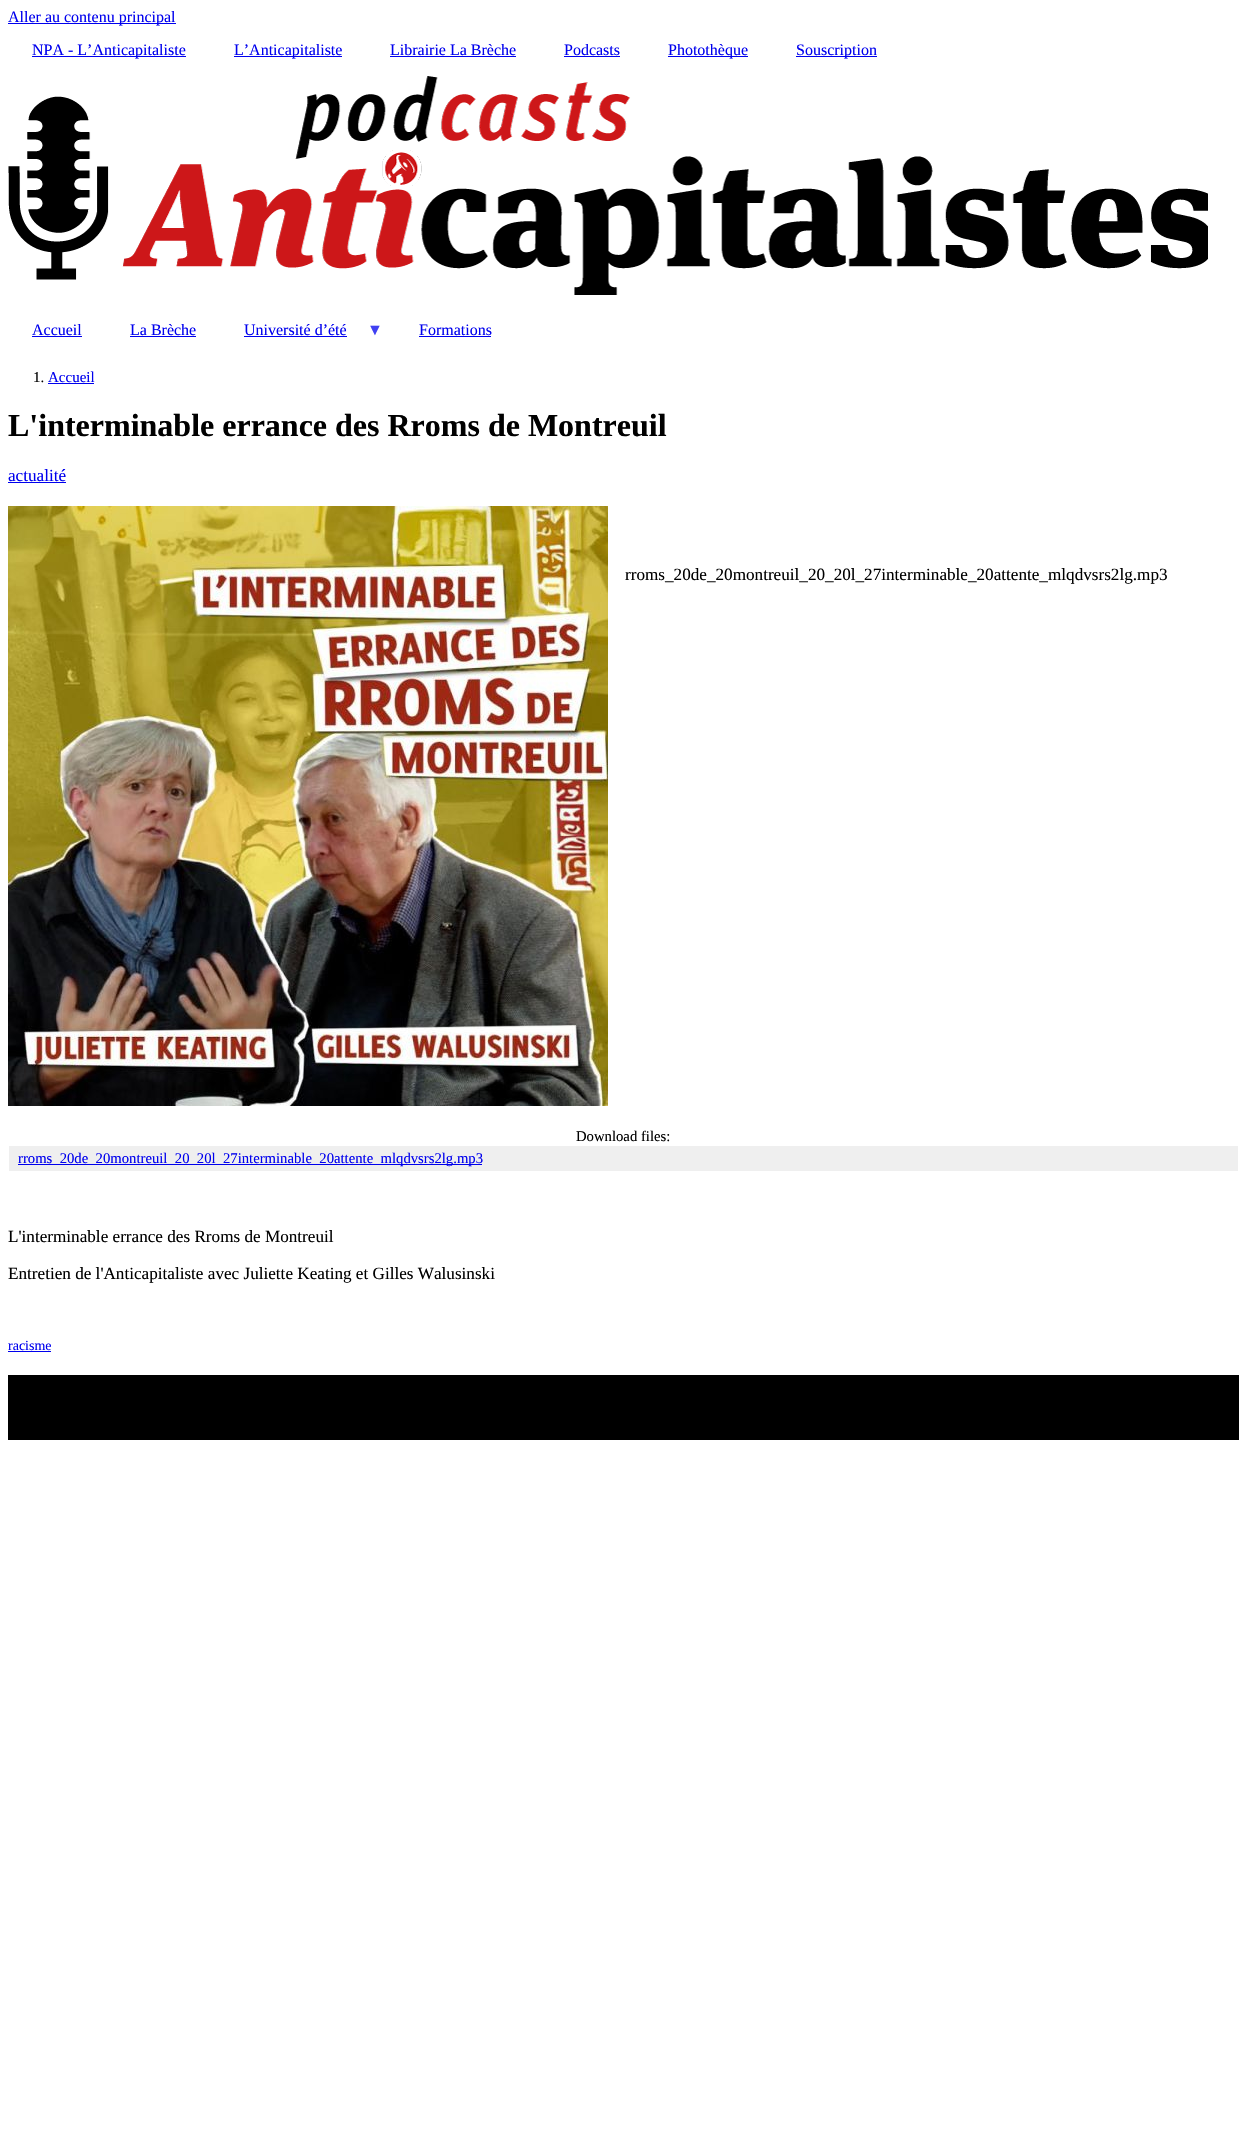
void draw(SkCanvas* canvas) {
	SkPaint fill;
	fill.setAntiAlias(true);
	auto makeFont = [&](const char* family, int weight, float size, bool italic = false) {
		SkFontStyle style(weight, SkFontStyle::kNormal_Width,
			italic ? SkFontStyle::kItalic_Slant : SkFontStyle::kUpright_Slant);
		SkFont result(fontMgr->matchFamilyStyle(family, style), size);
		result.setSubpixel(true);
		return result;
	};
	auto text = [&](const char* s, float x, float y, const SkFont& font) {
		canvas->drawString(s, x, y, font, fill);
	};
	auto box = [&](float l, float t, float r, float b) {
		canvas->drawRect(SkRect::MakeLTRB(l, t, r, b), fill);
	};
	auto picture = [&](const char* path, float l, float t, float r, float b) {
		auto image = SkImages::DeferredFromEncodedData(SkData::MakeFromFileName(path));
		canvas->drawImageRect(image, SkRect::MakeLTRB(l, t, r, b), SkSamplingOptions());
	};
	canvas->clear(0xFFFFFFFF);
	fill.setColor(0xFF0000EE);
	box(8, 23, 176, 24);
	box(32, 56, 186, 57);
	box(234, 56, 342, 57);
	box(390, 56, 516, 57);
	box(564, 56, 620, 57);
	box(668, 56, 748, 57);
	box(796, 56, 877, 57);
	picture("image0.png", 8, 76, 1208, 295);
	box(32, 336, 82, 337);
	box(130, 336, 196, 337);
	box(244, 336, 347, 337);
	box(419, 336, 491, 337);
	box(48, 383, 94, 384);
	box(8, 482, 66, 483);
	picture("image1.png", 8, 506, 608, 1106);
	fill.setColor(0xFFEFEFEF);
	box(9, 1146, 1238, 1171);
	fill.setColor(0xFF0000EE);
	box(18, 1164, 482, 1165);
	box(8, 1351, 51, 1352);
	fill.setColor(0xFF000000);
	box(8, 1375, 1239, 1440);
	auto font1 = makeFont("Liberation Serif", 400, 16);
	fill.setColor(0xFF0000EE);
	text("Aller au contenu principal", 8, 22, font1);
	text("NPA - L’Anticapitaliste", 32, 55, font1);
	text("L’Anticapitaliste", 234, 55, font1);
	text("Librairie La Brèche", 390, 55, font1);
	text("Podcasts", 564, 55, font1);
	text("Photothèque", 668, 55, font1);
	text("Souscription", 796, 55, font1);
	text("Accueil", 32, 335, font1);
	text("La Brèche", 130, 335, font1);
	text("Université d’été", 244, 335, font1);
	fill.setColor(0xFF4040F2);
	text("▼", 367, 335, font1);
	fill.setColor(0xFF0000EE);
	text("Formations", 419, 335, font1);
	auto font2 = makeFont("Liberation Serif", 400, 15);
	fill.setColor(0xFF000000);
	text("1.", 33, 382, font2);
	fill.setColor(0xFF0000EE);
	text("Accueil", 48, 382, font2);
	auto font3 = makeFont("Liberation Serif", 700, 32);
	fill.setColor(0xFF000000);
	text("L'interminable errance des Rroms de Montreuil", 8, 436, font3);
	auto font4 = makeFont("Liberation Serif", 400, 17.15f);
	fill.setColor(0xFF0000EE);
	text("actualité", 8, 481, font4);
	fill.setColor(0xFF000000);
	text("rroms_20de_20montreuil_20_20l_27interminable_20attente_mlqdvsrs2lg.mp3", 625, 580, font4);
	auto font5 = makeFont("Liberation Serif", 400, 14.7f);
	text("Download files:", 576, 1141, font5);
	fill.setColor(0xFF0000EE);
	text("rroms_20de_20montreuil_20_20l_27interminable_20attente_mlqdvsrs2lg.mp3", 18, 1163, font5);
	fill.setColor(0xFF000000);
	text("L'interminable errance des Rroms de Montreuil", 8, 1242, font4);
	text("Entretien de l'Anticapitaliste avec Juliette Keating et Gilles Walusinski", 8, 1279, font4);
	auto font6 = makeFont("Liberation Serif", 400, 14);
	fill.setColor(0xFF0000EE);
	text("racisme", 8, 1350, font6);
}
